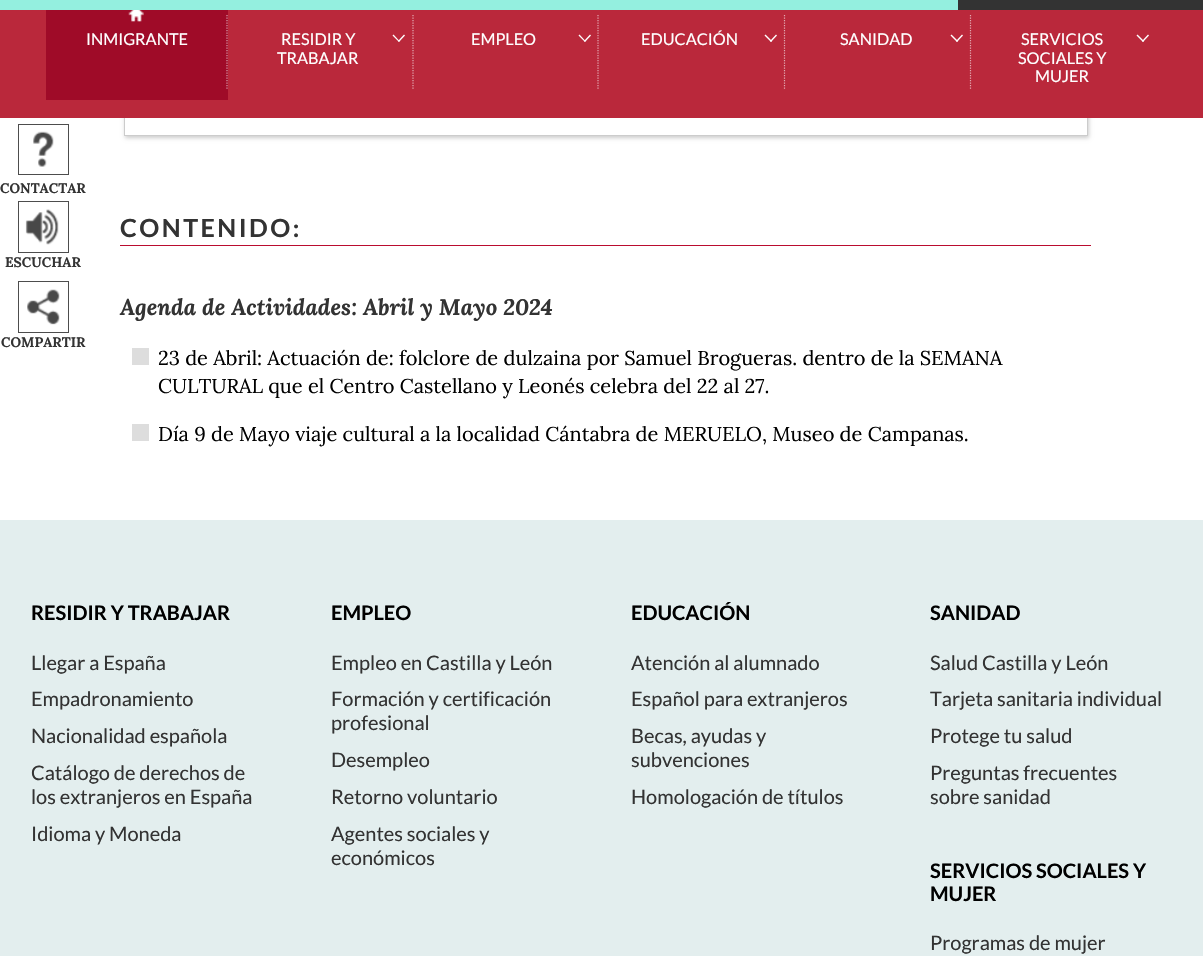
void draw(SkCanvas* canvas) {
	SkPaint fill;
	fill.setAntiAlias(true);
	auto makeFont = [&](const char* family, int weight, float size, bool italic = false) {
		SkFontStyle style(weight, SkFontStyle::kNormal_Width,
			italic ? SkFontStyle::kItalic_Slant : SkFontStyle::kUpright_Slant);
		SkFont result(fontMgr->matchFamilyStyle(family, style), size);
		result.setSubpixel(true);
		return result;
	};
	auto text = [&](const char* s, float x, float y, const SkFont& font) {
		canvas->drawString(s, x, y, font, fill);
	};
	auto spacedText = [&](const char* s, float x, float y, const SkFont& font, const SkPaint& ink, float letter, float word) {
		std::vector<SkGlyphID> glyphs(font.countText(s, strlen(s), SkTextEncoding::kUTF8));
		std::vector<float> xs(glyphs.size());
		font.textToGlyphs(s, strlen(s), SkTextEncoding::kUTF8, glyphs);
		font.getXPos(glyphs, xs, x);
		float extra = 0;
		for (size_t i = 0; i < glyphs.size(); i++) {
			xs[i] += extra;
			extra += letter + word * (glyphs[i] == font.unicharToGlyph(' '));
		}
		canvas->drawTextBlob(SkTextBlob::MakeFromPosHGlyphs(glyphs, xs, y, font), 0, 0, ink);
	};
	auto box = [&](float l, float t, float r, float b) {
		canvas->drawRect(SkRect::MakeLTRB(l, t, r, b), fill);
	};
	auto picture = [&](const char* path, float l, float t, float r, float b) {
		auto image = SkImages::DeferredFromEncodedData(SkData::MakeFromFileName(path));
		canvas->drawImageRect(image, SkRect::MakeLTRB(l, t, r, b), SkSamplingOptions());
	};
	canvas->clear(0xFFFFFFFF);
	canvas->save();
	canvas->clipPath(SkPathBuilder(SkPathFillType::kEvenOdd).moveTo(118, 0).lineTo(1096, 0).lineTo(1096, 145).lineTo(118, 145).close().moveTo(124, -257).lineTo(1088, -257).lineTo(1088, 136).lineTo(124, 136).close().detach(), true);
	fill.setColor(0xFFCCCCCC);
	fill.setMaskFilter(SkMaskFilter::MakeBlur(kNormal_SkBlurStyle, 2));
	canvas->drawRect(SkRect::MakeLTRB(125, -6, 1089, 138), fill);
	fill.setMaskFilter(nullptr);
	canvas->restore();
	fill.setStyle(SkPaint::kStroke_Style);
	fill.setStrokeWidth(1);
	canvas->drawRect(SkRect::MakeLTRB(124.5f, -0.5f, 1087.5f, 135.5f), fill);
	fill.setStyle(SkPaint::kFill_Style);
	fill.setColor(0xFF333333);
	box(958, 0, 1203, 10);
	fill.setColor(0xFF94EFDF);
	box(0, 0, 958, 10);
	fill.setColor(0xFFBA283B);
	box(0, 10, 1203, 118);
	fill.setColor(0xFF9F0B28);
	box(46, 10, 228, 100);
	picture("image0.png", 128, 10, 144, 22);
	fill.setStyle(SkPaint::kStroke_Style);
	fill.setStrokeWidth(1.2f);
	fill.setColor(0xFFD99DA9);
	fill.setPathEffect(SkDashPathEffect::Make({{1.25f, 1.25f}}, 0));
	canvas->drawPath(SkPathBuilder().moveTo(227, 15).lineTo(227, 90).detach(), fill);
	fill.setPathEffect(nullptr);
	fill.setStyle(SkPaint::kFill_Style);
	fill.setColor(0xFFFFFFFF);
	canvas->drawPath(SkPathBuilder().moveTo(404, 34.5f).lineTo(405, 35.5f).lineTo(399, 42).lineTo(398, 41).close().detach(), fill);
	canvas->drawPath(SkPathBuilder().moveTo(393.5f, 34.5f).lineTo(399.5f, 41).lineTo(399, 42).lineTo(392.5f, 35.5f).close().detach(), fill);
	fill.setStyle(SkPaint::kStroke_Style);
	fill.setColor(0xFFE3A9B1);
	fill.setPathEffect(SkDashPathEffect::Make({{1.25f, 1.25f}}, 0));
	canvas->drawPath(SkPathBuilder().moveTo(413, 15).lineTo(413, 90).detach(), fill);
	fill.setPathEffect(nullptr);
	fill.setStyle(SkPaint::kFill_Style);
	fill.setColor(0xFFFFFFFF);
	canvas->drawPath(SkPathBuilder().moveTo(590, 34.5f).lineTo(591, 35.5f).lineTo(585, 42).lineTo(584, 41).close().detach(), fill);
	canvas->drawPath(SkPathBuilder().moveTo(579.5f, 34.5f).lineTo(585.5f, 41).lineTo(585, 42).lineTo(578.5f, 35.5f).close().detach(), fill);
	fill.setStyle(SkPaint::kStroke_Style);
	fill.setColor(0xFFE3A9B1);
	fill.setPathEffect(SkDashPathEffect::Make({{1.25f, 1.25f}}, 0));
	canvas->drawPath(SkPathBuilder().moveTo(598, 15).lineTo(598, 90).detach(), fill);
	fill.setPathEffect(nullptr);
	fill.setStyle(SkPaint::kFill_Style);
	fill.setColor(0xFFFFFFFF);
	canvas->drawPath(SkPathBuilder().moveTo(776, 34.5f).lineTo(777, 35.5f).lineTo(771, 42).lineTo(770, 41).close().detach(), fill);
	canvas->drawPath(SkPathBuilder().moveTo(765.5f, 34.5f).lineTo(772, 41).lineTo(771, 42).lineTo(764.5f, 35.5f).close().detach(), fill);
	fill.setStyle(SkPaint::kStroke_Style);
	fill.setColor(0xFFE3A9B1);
	fill.setPathEffect(SkDashPathEffect::Make({{1.25f, 1.25f}}, 0));
	canvas->drawPath(SkPathBuilder().moveTo(784.5f, 15).lineTo(784.5f, 90).detach(), fill);
	fill.setPathEffect(nullptr);
	fill.setStyle(SkPaint::kFill_Style);
	fill.setColor(0xFFFFFFFF);
	canvas->drawPath(SkPathBuilder().moveTo(962, 34.5f).lineTo(963, 35.5f).lineTo(957, 42).lineTo(956, 41).close().detach(), fill);
	canvas->drawPath(SkPathBuilder().moveTo(951.5f, 34.5f).lineTo(958, 41).lineTo(957, 42).lineTo(950.5f, 35.5f).close().detach(), fill);
	fill.setStyle(SkPaint::kStroke_Style);
	fill.setColor(0xFFE3A9B1);
	fill.setPathEffect(SkDashPathEffect::Make({{1.25f, 1.25f}}, 0));
	canvas->drawPath(SkPathBuilder().moveTo(970.5f, 15).lineTo(970.5f, 90).detach(), fill);
	fill.setPathEffect(nullptr);
	fill.setStyle(SkPaint::kFill_Style);
	fill.setColor(0xFFFFFFFF);
	canvas->drawPath(SkPathBuilder().moveTo(1148, 34.5f).lineTo(1149, 35.5f).lineTo(1143, 42).lineTo(1142, 41).close().detach(), fill);
	canvas->drawPath(SkPathBuilder().moveTo(1137.5f, 34.5f).lineTo(1144, 41).lineTo(1143, 42).lineTo(1136.5f, 35.5f).close().detach(), fill);
	fill.setStyle(SkPaint::kStroke_Style);
	fill.setStrokeWidth(1);
	fill.setColor(0xFF4D4D4D);
	canvas->drawRect(SkRect::MakeLTRB(18.5f, 124.5f, 68.5f, 174.5f), fill);
	picture("image1.png", 33, 131, 54, 167);
	canvas->drawRect(SkRect::MakeLTRB(18.5f, 201.5f, 68.5f, 252.5f), fill);
	picture("image2.png", 25, 209, 59, 245);
	canvas->drawRect(SkRect::MakeLTRB(18.5f, 281.5f, 68.5f, 332.5f), fill);
	picture("image3.png", 27, 289, 60, 325);
	fill.setStyle(SkPaint::kFill_Style);
	fill.setColor(0xFFBA0C2F);
	box(120, 245, 1091, 246);
	fill.setColor(0xFFDDDDDD);
	box(132, 348, 149, 365);
	box(132, 424, 149, 441);
	fill.setColor(0xFFE3EEEE);
	box(0, 520, 1203, 956);
	auto font1 = makeFont("Lato", 400, 16.25f);
	fill.setColor(0xFFFFFFFF);
	text("INMIGRANTE", 86, 45, font1);
	text("RESIDIR Y", 281, 45, font1);
	text("TRABAJAR", 277, 64, font1);
	text("EMPLEO", 471, 45, font1);
	text("EDUCACIÓN", 641, 45, font1);
	text("SANIDAD", 840, 45, font1);
	text("SERVICIOS", 1021, 45, font1);
	text("SOCIALES Y", 1018, 64, font1);
	text("MUJER", 1035, 82, font1);
	auto font2 = makeFont("Lora", 700, 13.75f);
	fill.setColor(0xFF333333);
	text("CONTACTAR", 0, 193, font2);
	text("ESCUCHAR", 5, 267, font2);
	text("COMPARTIR", 1, 347, font2);
	auto font3 = makeFont("Lato", 700, 25);
	spacedText("CONTENIDO:", 120, 237, font3, fill, 2.5f, 0);
	auto font4 = makeFont("Lora", 700, 22.5f, true);
	text("Agenda de Actividades: Abril y Mayo 2024", 120, 315, font4);
	auto font5 = makeFont("Lora", 400, 20);
	fill.setColor(0xFF000000);
	text("23 de Abril: Actuación de: folclore de dulzaina por Samuel Brogueras. dentro de la SEMANA", 158, 365, font5);
	text("CULTURAL que el Centro Castellano y Leonés celebra del 22 al 27.", 158, 393, font5);
	text("Día 9 de Mayo viaje cultural a la localidad Cántabra de MERUELO, Museo de Campanas.", 158, 441, font5);
	auto font6 = makeFont("Lato", 700, 20);
	text("RESIDIR Y TRABAJAR", 31, 620, font6);
	auto font7 = makeFont("Lato", 400, 20);
	fill.setColor(0xFF333333);
	text("Llegar a España", 31, 670, font7);
	text("Empadronamiento", 31, 706, font7);
	text("Nacionalidad española", 31, 743, font7);
	text("Catálogo de derechos de", 31, 780, font7);
	text("los extranjeros en España", 31, 804, font7);
	text("Idioma y Moneda", 31, 841, font7);
	fill.setColor(0xFF000000);
	text("EMPLEO", 331, 620, font6);
	fill.setColor(0xFF333333);
	text("Empleo en Castilla y León", 331, 670, font7);
	text("Formación y certificación", 331, 706, font7);
	text("profesional", 331, 730, font7);
	text("Desempleo", 331, 767, font7);
	text("Retorno voluntario", 331, 804, font7);
	text("Agentes sociales y", 331, 841, font7);
	text("económicos", 331, 865, font7);
	fill.setColor(0xFF000000);
	text("EDUCACIÓN", 631, 620, font6);
	fill.setColor(0xFF333333);
	text("Atención al alumnado", 631, 670, font7);
	text("Español para extranjeros", 631, 706, font7);
	text("Becas, ayudas y", 631, 743, font7);
	text("subvenciones", 631, 767, font7);
	text("Homologación de títulos", 631, 804, font7);
	fill.setColor(0xFF000000);
	text("SANIDAD", 930, 620, font6);
	fill.setColor(0xFF333333);
	text("Salud Castilla y León", 930, 670, font7);
	text("Tarjeta sanitaria individual", 930, 706, font7);
	text("Protege tu salud", 930, 743, font7);
	text("Preguntas frecuentes", 930, 780, font7);
	text("sobre sanidad", 930, 804, font7);
	fill.setColor(0xFF000000);
	text("SERVICIOS SOCIALES Y", 930, 878, font6);
	text("MUJER", 930, 901, font6);
	fill.setColor(0xFF333333);
	text("Programas de mujer", 930, 950, font7);
}
